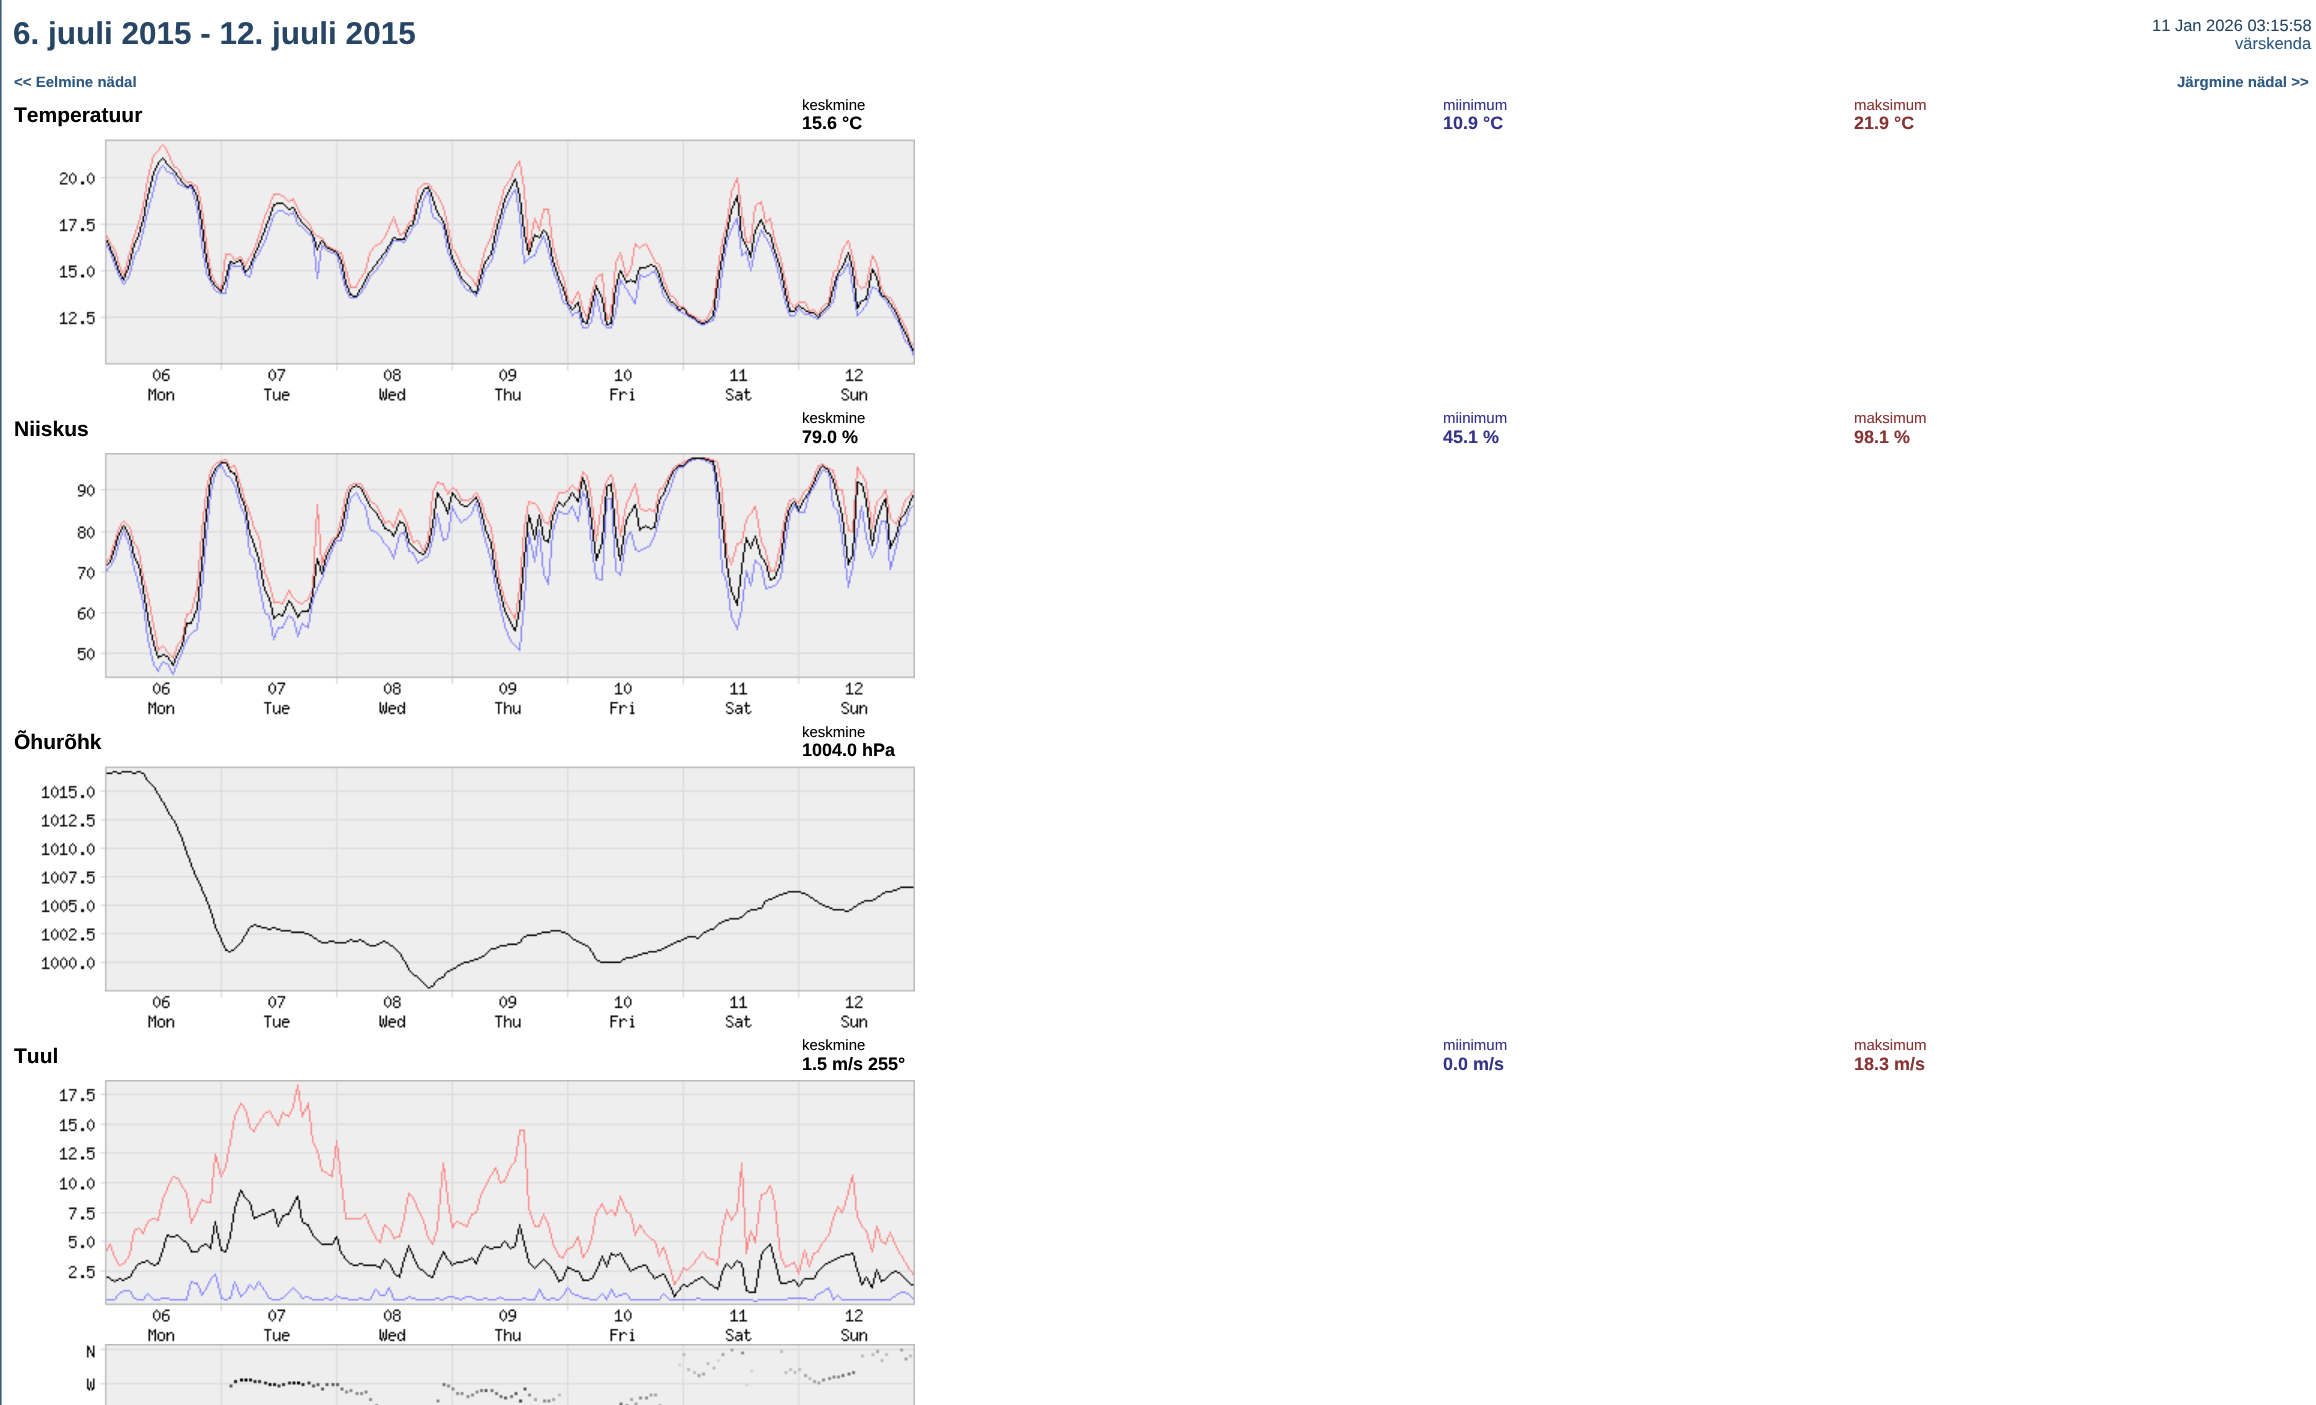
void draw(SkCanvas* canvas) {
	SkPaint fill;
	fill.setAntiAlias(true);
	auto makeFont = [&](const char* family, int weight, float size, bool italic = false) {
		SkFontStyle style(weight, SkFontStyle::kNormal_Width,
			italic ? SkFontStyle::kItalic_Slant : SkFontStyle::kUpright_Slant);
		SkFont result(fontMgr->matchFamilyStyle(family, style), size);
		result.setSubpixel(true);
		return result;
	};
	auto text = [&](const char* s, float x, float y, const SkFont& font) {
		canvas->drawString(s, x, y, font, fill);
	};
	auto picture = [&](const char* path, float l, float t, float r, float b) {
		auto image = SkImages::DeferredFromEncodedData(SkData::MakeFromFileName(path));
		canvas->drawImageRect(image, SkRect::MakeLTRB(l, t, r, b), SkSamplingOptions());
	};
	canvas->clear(0xFFFFFFFF);
	picture("image0.png", 0, 0, 2, 1405);
	picture("image1.png", 59, 139, 915, 401);
	picture("image2.png", 77, 453, 915, 715);
	picture("image3.png", 41, 766, 915, 1028);
	picture("image4.png", 59, 1080, 915, 1342);
	picture("image5.png", 86, 1344, 915, 1405);
	auto font1 = makeFont("Liberation Sans", 700, 31.5f);
	fill.setColor(0xFF264664);
	text("6. juuli 2015 - 12. juuli 2015", 13, 44, font1);
	auto font2 = makeFont("Liberation Sans", 400, 16.5f);
	text("11 Jan 2026 03:15:58", 2152, 31, font2);
	fill.setColor(0xFF2D587F);
	text("värskenda", 2235, 49, font2);
	auto font3 = makeFont("Liberation Sans", 700, 15);
	text("<< Eelmine nädal", 14, 87, font3);
	text("Järgmine nädal >>", 2177, 87, font3);
	auto font4 = makeFont("Liberation Sans", 700, 21);
	fill.setColor(0xFF000000);
	text("Temperatuur", 14, 122, font4);
	auto font5 = makeFont("Liberation Sans", 400, 15);
	text("keskmine", 802, 110, font5);
	auto font6 = makeFont("Liberation Sans", 700, 18);
	text("15.6 °C", 802, 129, font6);
	fill.setColor(0xFF333388);
	text("miinimum", 1443, 110, font5);
	text("10.9 °C", 1443, 129, font6);
	fill.setColor(0xFF883333);
	text("maksimum", 1854, 110, font5);
	text("21.9 °C", 1854, 129, font6);
	fill.setColor(0xFF000000);
	text("Niiskus", 14, 436, font4);
	text("keskmine", 802, 423, font5);
	text("79.0 %", 802, 443, font6);
	fill.setColor(0xFF333388);
	text("miinimum", 1443, 423, font5);
	text("45.1 %", 1443, 443, font6);
	fill.setColor(0xFF883333);
	text("maksimum", 1854, 423, font5);
	text("98.1 %", 1854, 443, font6);
	fill.setColor(0xFF000000);
	text("Õhurõhk", 14, 749, font4);
	text("keskmine", 802, 737, font5);
	text("1004.0 hPa", 802, 756, font6);
	text("Tuul", 14, 1063, font4);
	text("keskmine", 802, 1050, font5);
	text("1.5 m/s 255°", 802, 1070, font6);
	fill.setColor(0xFF333388);
	text("miinimum", 1443, 1050, font5);
	text("0.0 m/s", 1443, 1070, font6);
	fill.setColor(0xFF883333);
	text("maksimum", 1854, 1050, font5);
	text("18.3 m/s", 1854, 1070, font6);
}
